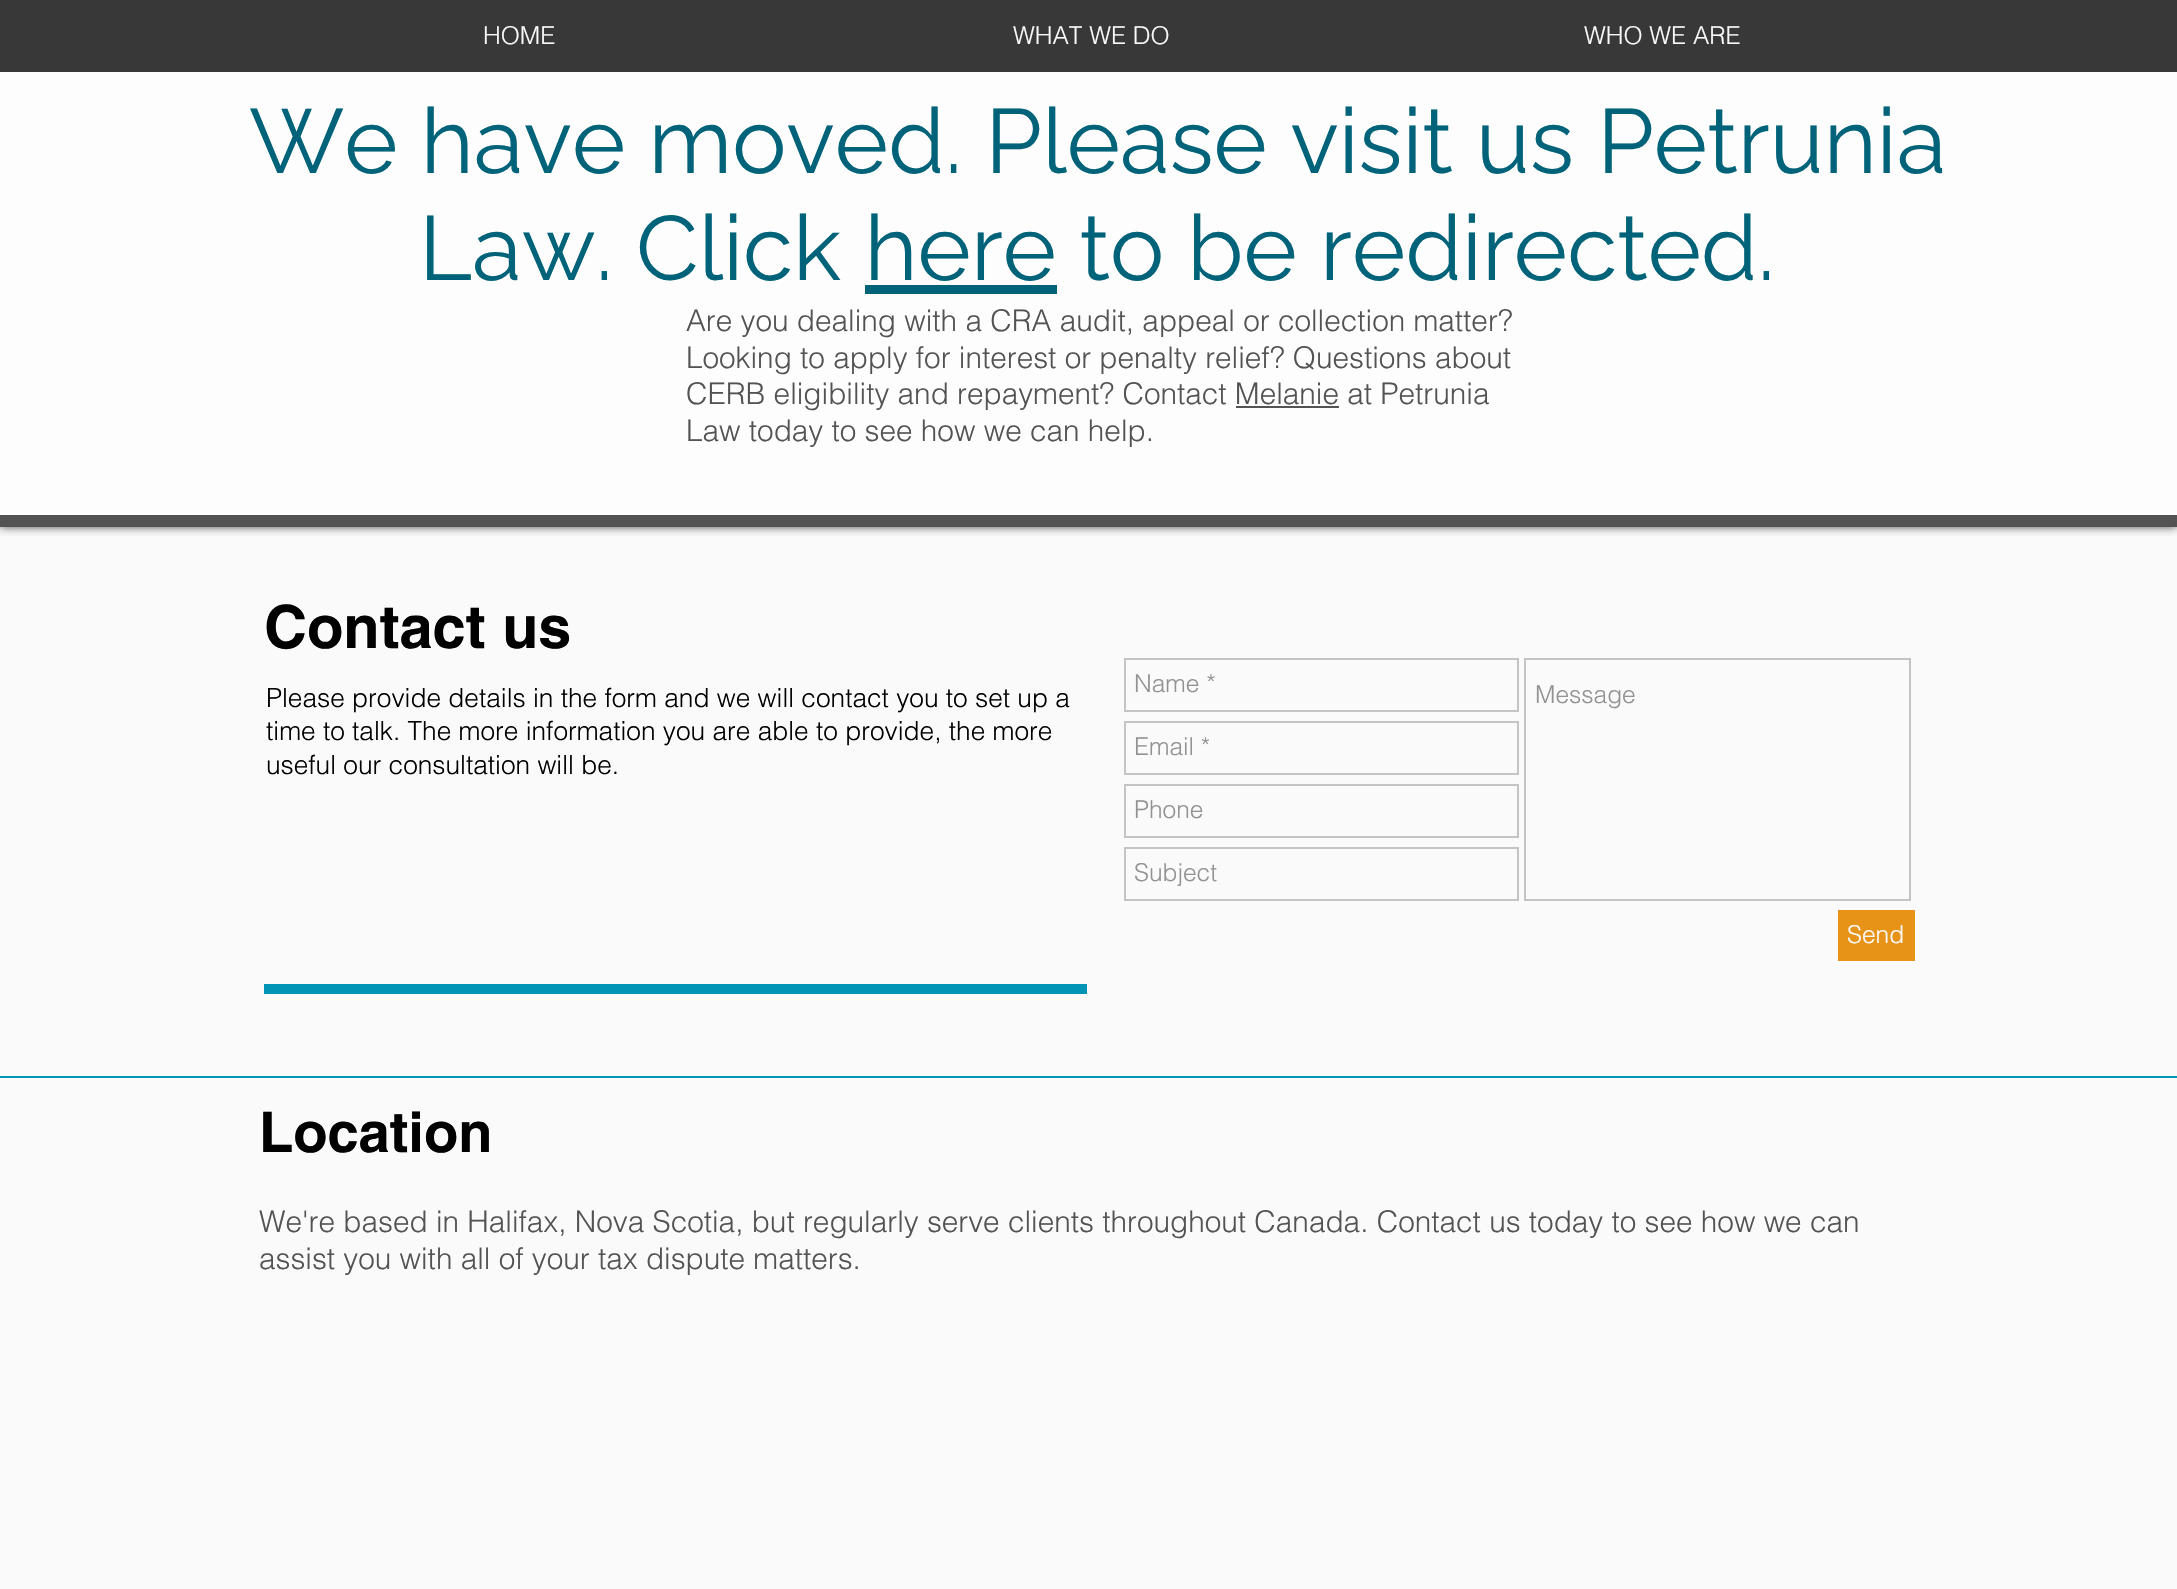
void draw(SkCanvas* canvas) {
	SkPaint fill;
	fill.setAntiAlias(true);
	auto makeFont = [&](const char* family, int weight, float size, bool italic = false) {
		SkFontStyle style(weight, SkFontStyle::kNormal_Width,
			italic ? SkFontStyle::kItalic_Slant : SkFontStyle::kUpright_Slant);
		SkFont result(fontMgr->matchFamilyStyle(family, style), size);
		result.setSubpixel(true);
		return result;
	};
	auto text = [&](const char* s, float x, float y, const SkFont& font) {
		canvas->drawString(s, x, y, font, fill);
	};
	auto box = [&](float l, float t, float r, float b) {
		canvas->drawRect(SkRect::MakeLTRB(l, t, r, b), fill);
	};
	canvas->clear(0xFFFAFAFA);
	canvas->save();
	canvas->clipRect(SkRect::MakeLTRB(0, 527, 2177, 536));
	fill.setColor(0xB3000000);
	fill.setMaskFilter(SkMaskFilter::MakeBlur(kNormal_SkBlurStyle, 4.5f));
	canvas->drawRect(SkRect::MakeLTRB(0, 0, 2177, 527), fill);
	fill.setMaskFilter(nullptr);
	canvas->restore();
	fill.setColor(0x99FFFFFF);
	box(0, 72, 2177, 515);
	fill.setColor(0xFF535353);
	box(0, 515, 2177, 527);
	fill.setColor(0xFF383838);
	box(0, 0, 2177, 72);
	fill.setColor(0xFF016379);
	box(865, 285, 1057, 294);
	fill.setColor(0xFF535353);
	box(1236, 406, 1339, 408);
	fill.setStyle(SkPaint::kStroke_Style);
	fill.setStrokeWidth(2);
	fill.setColor(0xFFC5C3C3);
	canvas->drawRect(SkRect::MakeLTRB(1125, 659, 1518, 711), fill);
	canvas->drawRect(SkRect::MakeLTRB(1525, 659, 1910, 900), fill);
	canvas->drawRect(SkRect::MakeLTRB(1125, 722, 1518, 774), fill);
	canvas->drawRect(SkRect::MakeLTRB(1125, 785, 1518, 837), fill);
	canvas->drawRect(SkRect::MakeLTRB(1125, 848, 1518, 900), fill);
	fill.setStyle(SkPaint::kFill_Style);
	fill.setColor(0xFFE69317);
	box(1838, 910, 1915, 961);
	fill.setColor(0xFF0294B5);
	box(264, 984, 1087, 994);
	box(0, 1076, 2177, 1078);
	auto font1 = makeFont("helvetica", 300, 24.5f);
	fill.setColor(0xFFFAFAFA);
	text("HOME", 483, 44, font1);
	text("WHAT WE DO", 1013, 44, font1);
	text("WHO WE ARE", 1584, 44, font1);
	auto font2 = makeFont("Raleway", 400, 91);
	fill.setColor(0xFF016379);
	text("We have moved. Please visit us Petrunia", 249, 173, font2);
	text("Law. Click here to be redirected.", 419, 280, font2);
	auto font3 = makeFont("helvetica", 300, 29.75f);
	fill.setColor(0xFF535353);
	text("Are you dealing with a CRA audit, appeal or collection matter?", 686, 331, font3);
	text("Looking to apply for interest or penalty relief? Questions about", 686, 368, font3);
	text("CERB eligibility and repayment? Contact Melanie at Petrunia", 686, 404, font3);
	text("Law today to see how we can help.", 686, 441, font3);
	auto font4 = makeFont("helvetica", 700, 59.5f);
	fill.setColor(0xFF000000);
	text("Contact us", 264, 648, font4);
	auto font5 = makeFont("helvetica", 300, 26.25f);
	text("Please provide details in the form and we will contact you to set up a", 266, 707, font5);
	text("time to talk. The more information you are able to provide, the more", 266, 740, font5);
	text("useful our consultation will be.", 266, 774, font5);
	fill.setColor(0xFF929292);
	text("Name *", 1134, 692, font1);
	text("Message", 1535, 703, font1);
	text("Email *", 1134, 755, font1);
	text("Phone", 1134, 818, font1);
	text("Subject", 1134, 881, font1);
	fill.setColor(0xFFFAFAFA);
	text("Send", 1847, 943, font1);
	auto font6 = makeFont("helvetica", 700, 56);
	fill.setColor(0xFF000000);
	text("Location", 259, 1152, font6);
	fill.setColor(0xFF535353);
	text("We're based in Halifax, Nova Scotia, but regularly serve clients throughout Canada. Contact us today to see how we can", 259, 1232, font3);
	text("assist you with all of your tax dispute matters.", 259, 1269, font3);
}
